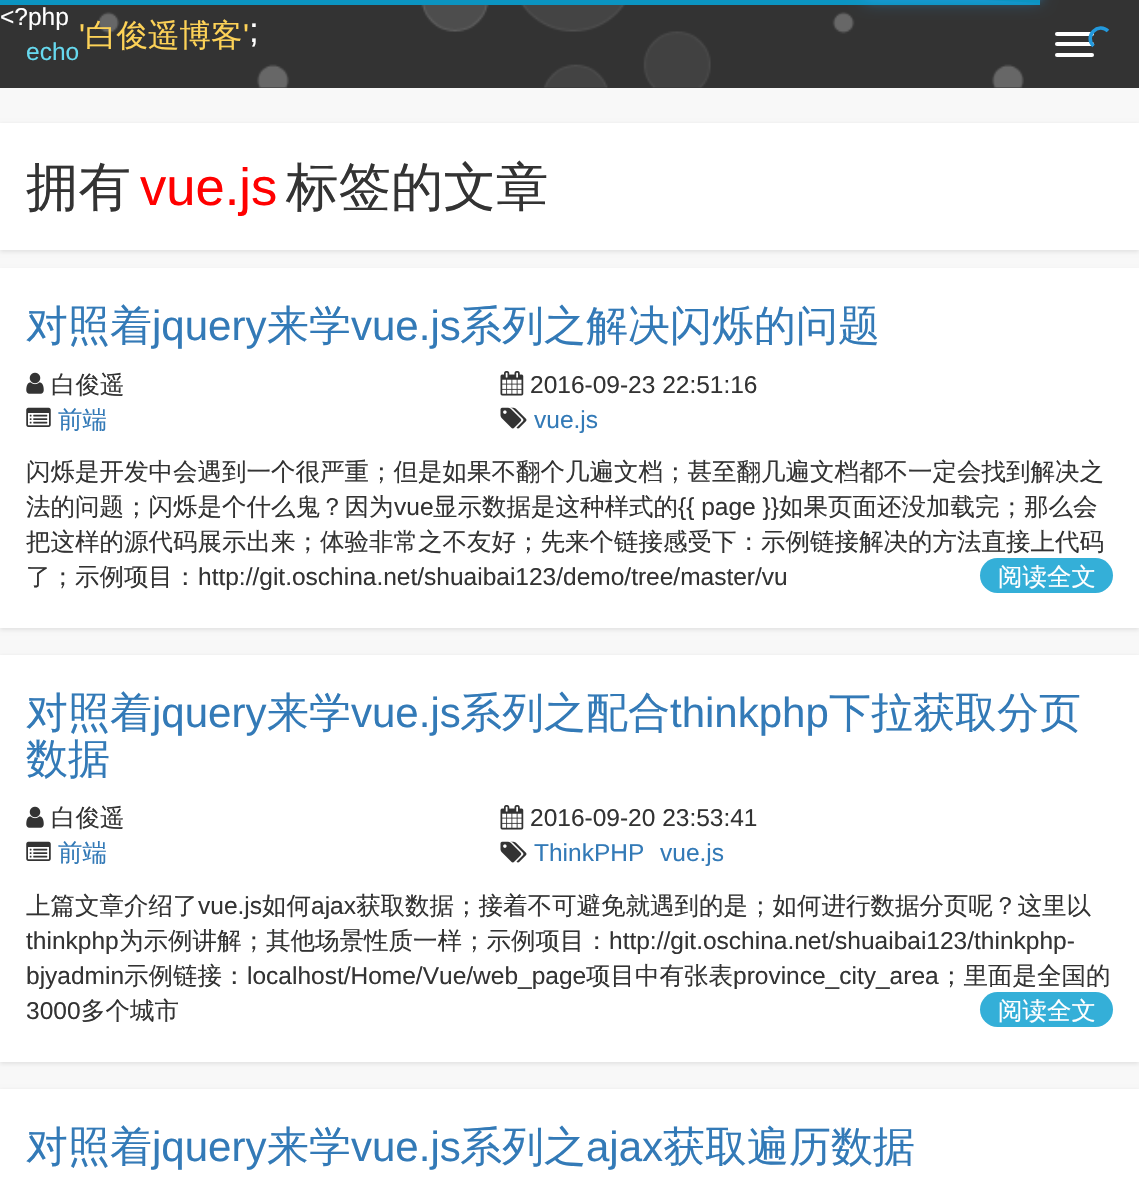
void draw(SkCanvas* canvas) {
	SkPaint fill;
	fill.setAntiAlias(true);
	auto makeFont = [&](const char* family, int weight, float size, bool italic = false) {
		SkFontStyle style(weight, SkFontStyle::kNormal_Width,
			italic ? SkFontStyle::kItalic_Slant : SkFontStyle::kUpright_Slant);
		SkFont result(fontMgr->matchFamilyStyle(family, style), size);
		result.setSubpixel(true);
		return result;
	};
	auto text = [&](const char* s, float x, float y, const SkFont& font) {
		canvas->drawString(s, x, y, font, fill);
	};
	auto box = [&](float l, float t, float r, float b) {
		canvas->drawRect(SkRect::MakeLTRB(l, t, r, b), fill);
	};
	auto roundBox = [&](float l, float t, float r, float b, float radius) {
		canvas->drawRoundRect(SkRect::MakeLTRB(l, t, r, b), radius, radius, fill);
	};
	auto picture = [&](const char* path, float l, float t, float r, float b) {
		auto image = SkImages::DeferredFromEncodedData(SkData::MakeFromFileName(path));
		canvas->drawImageRect(image, SkRect::MakeLTRB(l, t, r, b), SkSamplingOptions());
	};
	canvas->clear(0xFFF8F8F8);
	fill.setColor(0xFF333333);
	box(0, 0, 1139, 88);
	fill.setColor(0xFF0B94C1);
	box(0, 0, 1040, 5);
	picture("image0.png", 97, 5, 1024, 88);
	canvas->save();
	canvas->clipPath(SkPathBuilder(SkPathFillType::kEvenOdd).moveTo(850, 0).lineTo(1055, 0).lineTo(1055, 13).lineTo(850, 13).close().moveTo(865.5f, -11.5f).lineTo(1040, -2.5f).lineTo(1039.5f, 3).lineTo(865, -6.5f).close().detach(), true);
	fill.setColor(0xFF2299DD);
	fill.setMaskFilter(SkMaskFilter::MakeBlur(kNormal_SkBlurStyle, 4.5f));
	canvas->drawRect(SkRect::MakeLTRB(865, -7, 1040, -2), fill);
	fill.setMaskFilter(nullptr);
	canvas->restore();
	canvas->save();
	canvas->clipPath(SkPathBuilder(SkPathFillType::kEvenOdd).moveTo(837, 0).lineTo(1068, 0).lineTo(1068, 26).lineTo(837, 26).close().moveTo(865.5f, -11.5f).lineTo(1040, -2.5f).lineTo(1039.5f, 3).lineTo(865, -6.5f).close().detach(), true);
	fill.setMaskFilter(SkMaskFilter::MakeBlur(kNormal_SkBlurStyle, 9));
	canvas->drawRect(SkRect::MakeLTRB(865, -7, 1040, -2), fill);
	fill.setMaskFilter(nullptr);
	canvas->restore();
	fill.setColor(0xFFFFFFFF);
	roundBox(1055, 32, 1094, 36, 2);
	roundBox(1055, 42, 1094, 46, 2);
	fill.setStyle(SkPaint::kStroke_Style);
	fill.setStrokeWidth(3.5f);
	fill.setColor(0xFF2299DD);
	canvas->drawPath(SkPathBuilder().moveTo(1093.5f, 46).cubicTo(1083.5f, 36, 1098.5f, 21.5f, 1108, 31).detach(), fill);
	fill.setStyle(SkPaint::kFill_Style);
	fill.setColor(0xFFFFFFFF);
	roundBox(1055, 53, 1094, 57, 2);
	fill.setColor(0xFFE2E2E2);
	fill.setMaskFilter(SkMaskFilter::MakeBlur(kNormal_SkBlurStyle, 2));
	canvas->drawRect(SkRect::MakeLTRB(0, 124, 1139, 252), fill);
	fill.setMaskFilter(nullptr);
	fill.setColor(0xFFFFFFFF);
	box(0, 123, 1139, 250);
	fill.setColor(0xFFE2E2E2);
	fill.setMaskFilter(SkMaskFilter::MakeBlur(kNormal_SkBlurStyle, 2));
	canvas->drawRect(SkRect::MakeLTRB(0, 270, 1139, 630), fill);
	fill.setMaskFilter(nullptr);
	fill.setColor(0xFFFFFFFF);
	box(0, 268, 1139, 628);
	picture("image1.png", 26, 372, 44, 394);
	picture("image2.png", 500, 371, 524, 396);
	picture("image3.png", 26, 407, 51, 427);
	picture("image4.png", 500, 407, 527, 429);
	fill.setColor(0xFF34AFD8);
	roundBox(980, 558, 1113, 593, 17.5f);
	fill.setColor(0xFFE2E2E2);
	fill.setMaskFilter(SkMaskFilter::MakeBlur(kNormal_SkBlurStyle, 2));
	canvas->drawRect(SkRect::MakeLTRB(0, 656, 1139, 1064), fill);
	fill.setMaskFilter(nullptr);
	fill.setColor(0xFFFFFFFF);
	box(0, 655, 1139, 1062);
	picture("image1.png", 26, 806, 44, 828);
	picture("image2.png", 500, 805, 524, 830);
	picture("image3.png", 26, 841, 51, 861);
	picture("image4.png", 500, 841, 527, 863);
	fill.setColor(0xFF34AFD8);
	roundBox(980, 992, 1113, 1027, 17.5f);
	fill.setColor(0xFFE2E2E2);
	fill.setMaskFilter(SkMaskFilter::MakeBlur(kNormal_SkBlurStyle, 2));
	canvas->drawRect(SkRect::MakeLTRB(0, 1090, 1139, 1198), fill);
	fill.setMaskFilter(nullptr);
	fill.setColor(0xFFFFFFFF);
	box(0, 1089, 1139, 1192);
	auto font1 = makeFont("Liberation Sans", 400, 24.5f);
	text("<?php", 0, 25, font1);
	fill.setColor(0xFF66D9EF);
	text("echo", 26, 60, font1);
	auto font2 = makeFont("Liberation Sans", 400, 31.5f);
	fill.setColor(0xFFFDD257);
	text("'", 79, 46, font2);
	auto font3 = makeFont("WenQuanYi Zen Hei", 500, 31.5f);
	text("白俊遥博客", 85, 46, font3);
	text("'", 243, 46, font2);
	auto font4 = makeFont("Liberation Sans", 400, 35);
	fill.setColor(0xFFFFFFFF);
	text(";", 249, 42, font4);
	auto font5 = makeFont("WenQuanYi Zen Hei", 500, 52.5f);
	fill.setColor(0xFF333333);
	text("拥有", 26, 205, font5);
	auto font6 = makeFont("Liberation Sans", 400, 52.5f);
	fill.setColor(0xFFFF0000);
	text("vue.js", 140, 205, font6);
	fill.setColor(0xFF333333);
	text("标签的文章", 286, 205, font5);
	auto font7 = makeFont("WenQuanYi Zen Hei", 500, 42);
	fill.setColor(0xFF337AB7);
	text("对照着", 26, 340, font7);
	auto font8 = makeFont("Liberation Sans", 400, 42);
	text("jquery", 152, 340, font8);
	text("来学", 267, 340, font7);
	text("vue.js", 351, 340, font8);
	text("系列之解决闪烁的问题", 460, 340, font7);
	auto font9 = makeFont("WenQuanYi Zen Hei", 500, 24.5f);
	fill.setColor(0xFF333333);
	text("白俊遥", 51, 393, font9);
	text("2016-09-23 22:51:16", 530, 393, font1);
	fill.setColor(0xFF337AB7);
	text("前端", 58, 428, font9);
	text("vue.js", 534, 428, font1);
	fill.setColor(0xFF333333);
	text("闪烁是开发中会遇到一个很严重；但是如果不翻个几遍文档；甚至翻几遍文档都不一定会找到解决之", 26, 480, font9);
	text("法的问题；闪烁是个什么鬼？因为", 26, 515, font9);
	text("vue", 394, 515, font1);
	text("显示数据是这种样式的", 433, 515, font9);
	text("{{ page }}", 678, 515, font1);
	text("如果页面还没加载完；那么会", 779, 515, font9);
	text("把这样的源代码展示出来；体验非常之不友好；先来个链接感受下：示例链接解决的方法直接上代码", 26, 550, font9);
	text("了；示例项目：", 26, 585, font9);
	text("http://git.oschina.net/shuaibai123/demo/tree/master/vu", 198, 585, font1);
	fill.setColor(0xFFFFFFFF);
	text("阅读全文", 998, 585, font9);
	fill.setColor(0xFF337AB7);
	text("对照着", 26, 727, font7);
	text("jquery", 152, 727, font8);
	text("来学", 267, 727, font7);
	text("vue.js", 351, 727, font8);
	text("系列之配合", 460, 727, font7);
	text("thinkphp", 670, 727, font8);
	text("下拉获取分页", 829, 727, font7);
	text("数据", 26, 773, font7);
	fill.setColor(0xFF333333);
	text("白俊遥", 51, 826, font9);
	text("2016-09-20 23:53:41", 530, 826, font1);
	fill.setColor(0xFF337AB7);
	text("前端", 58, 861, font9);
	text("ThinkPHP", 534, 861, font1);
	text("vue.js", 660, 861, font1);
	fill.setColor(0xFF333333);
	text("上篇文章介绍了", 26, 914, font9);
	text("vue.js", 198, 914, font1);
	text("如何", 262, 914, font9);
	text("ajax", 311, 914, font1);
	text("获取数据；接着不可避免就遇到的是；如何进行数据分页呢？这里以", 356, 914, font9);
	text("thinkphp", 26, 949, font1);
	text("为示例讲解；其他场景性质一样；示例项目：", 119, 949, font9);
	text("http://git.oschina.net/shuaibai123/thinkphp-", 609, 949, font1);
	text("bjyadmin", 26, 984, font1);
	text("示例链接：", 124, 984, font9);
	text("localhost/Home/Vue/web_page", 247, 984, font1);
	text("项目中有张表", 586, 984, font9);
	text("province_city_area", 733, 984, font1);
	text("；里面是全国的", 939, 984, font9);
	text("3000", 26, 1019, font1);
	text("多个城市", 81, 1019, font9);
	fill.setColor(0xFFFFFFFF);
	text("阅读全文", 998, 1019, font9);
	fill.setColor(0xFF337AB7);
	text("对照着", 26, 1161, font7);
	text("jquery", 152, 1161, font8);
	text("来学", 267, 1161, font7);
	text("vue.js", 351, 1161, font8);
	text("系列之", 460, 1161, font7);
	text("ajax", 586, 1161, font8);
	text("获取遍历数据", 663, 1161, font7);
}
